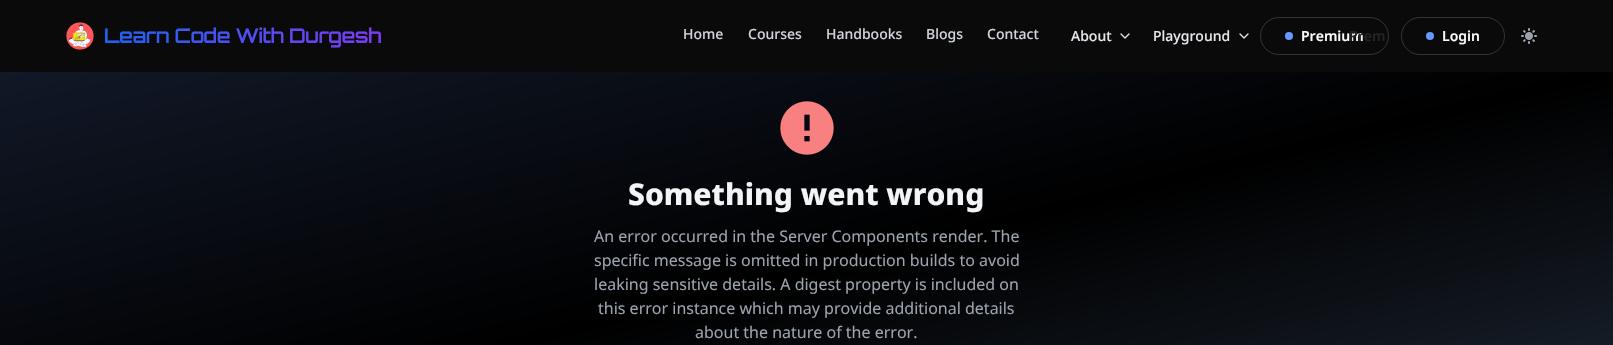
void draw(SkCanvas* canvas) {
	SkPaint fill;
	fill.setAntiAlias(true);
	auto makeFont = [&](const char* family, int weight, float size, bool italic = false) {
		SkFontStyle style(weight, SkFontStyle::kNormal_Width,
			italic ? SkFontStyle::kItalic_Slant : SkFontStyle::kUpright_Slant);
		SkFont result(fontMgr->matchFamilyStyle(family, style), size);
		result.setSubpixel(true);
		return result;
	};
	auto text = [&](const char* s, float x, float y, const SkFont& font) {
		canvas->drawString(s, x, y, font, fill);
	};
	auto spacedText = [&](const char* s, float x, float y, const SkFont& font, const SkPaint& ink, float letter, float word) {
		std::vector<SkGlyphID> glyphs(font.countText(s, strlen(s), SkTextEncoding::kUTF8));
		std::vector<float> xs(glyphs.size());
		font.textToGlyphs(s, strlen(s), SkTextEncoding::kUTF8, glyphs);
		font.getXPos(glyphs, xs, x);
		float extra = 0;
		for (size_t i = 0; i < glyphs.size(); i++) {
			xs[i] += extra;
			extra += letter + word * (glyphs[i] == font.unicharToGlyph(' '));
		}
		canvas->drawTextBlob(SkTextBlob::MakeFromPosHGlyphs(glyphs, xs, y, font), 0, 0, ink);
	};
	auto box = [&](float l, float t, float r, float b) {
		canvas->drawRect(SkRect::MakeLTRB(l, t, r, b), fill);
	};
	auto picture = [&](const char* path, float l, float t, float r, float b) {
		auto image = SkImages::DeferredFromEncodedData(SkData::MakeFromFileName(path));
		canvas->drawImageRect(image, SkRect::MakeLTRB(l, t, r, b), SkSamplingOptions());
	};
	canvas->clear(0xFF0A0A0A);
	picture("image0.png", 66, 22, 94, 50);
	fill.setStyle(SkPaint::kStroke_Style);
	fill.setStrokeWidth(1.3f);
	fill.setStrokeCap(SkPaint::kRound_Cap);
	fill.setStrokeJoin(SkPaint::kRound_Join);
	fill.setColor(0xFFE5E7EB);
	canvas->drawPath(SkPathBuilder().moveTo(1121, 34).lineTo(1125, 38).lineTo(1129, 34).detach(), fill);
	canvas->drawPath(SkPathBuilder().moveTo(1240, 34).lineTo(1244, 38).lineTo(1248, 34).detach(), fill);
	fill.setStrokeWidth(1);
	fill.setStrokeCap(SkPaint::kButt_Cap);
	fill.setStrokeJoin(SkPaint::kMiter_Join);
	fill.setColor(0xFF333333);
	canvas->drawRoundRect(SkRect::MakeLTRB(1260.5f, 17.5f, 1388.5f, 54.5f), 18.5f, 18.5f, fill);
	fill.setStyle(SkPaint::kFill_Style);
	fill.setColor(0xFF6699FF);
	canvas->drawCircle(1289, 36, 4, fill);
	fill.setStyle(SkPaint::kStroke_Style);
	fill.setColor(0xFF333333);
	canvas->drawRoundRect(SkRect::MakeLTRB(1401.5f, 17.5f, 1504.5f, 54.5f), 18.5f, 18.5f, fill);
	fill.setStyle(SkPaint::kFill_Style);
	fill.setColor(0xFF6699FF);
	canvas->drawCircle(1430, 36, 4, fill);
	picture("image1.png", 1521, 28, 1537, 44);
	{
		const SkColor colors[] = {0xFF111827, 0xFF000000, 0xFF1F2937};
		const float stops[] = {0, 0.5f, 1};
		const SkPoint ends[] = {{713, -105}, {900, 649}};
		fill.setShader(SkGradientShader::MakeLinear(ends, colors, stops, 3, SkTileMode::kClamp));
		fill.setAlpha(255);
	}
	box(0, 72, 1613, 345);
	picture("image2.png", 780, 101, 834, 155);
	auto font1 = makeFont("Orbitron", 600, 20);
	{
		const SkColor colors[] = {0xFF1C64F2, 0xFF7E3AF2};
		const float stops[] = {0, 1};
		const SkPoint ends[] = {{104, 36}, {381, 36}};
		fill.setShader(SkGradientShader::MakeLinear(ends, colors, stops, 2, SkTileMode::kClamp));
		fill.setAlpha(255);
	}
	spacedText("Learn Code With Durgesh", 104, 43, font1, fill, -0.5f, 0);
	auto font2 = makeFont("Noto Sans", 500, 14);
	fill.setShader(nullptr);
	fill.setColor(0xFFD1D5DB);
	text("Home", 683, 39, font2);
	text("Courses", 748, 39, font2);
	text("Handbooks", 826, 39, font2);
	text("Blogs", 926, 39, font2);
	text("Contact", 987, 39, font2);
	fill.setColor(0xFFE5E7EB);
	text("About", 1071, 41, font2);
	text("Playground", 1153, 41, font2);
	auto font3 = makeFont("Noto Sans", 600, 14);
	fill.setColor(0xFFFAFAFA);
	text("Premium", 1301, 41, font3);
	fill.setColor(0xFF242424);
	text("Prem", 1349, 41, font3);
	fill.setColor(0xFFFAFAFA);
	text("Login", 1442, 41, font3);
	auto font4 = makeFont("Noto Sans", 800, 30);
	fill.setColor(0xFFF3F4F6);
	text("Something went wrong", 628, 205, font4);
	auto font5 = makeFont("Noto Sans", 400, 16);
	fill.setColor(0xFF9CA3AF);
	text("An error occurred in the Server Components render. The", 594, 242, font5);
	text("specific message is omitted in production builds to avoid", 594, 266, font5);
	text("leaking sensitive details. A digest property is included on", 594, 290, font5);
	text("this error instance which may provide additional details", 598, 314, font5);
	text("about the nature of the error.", 695, 338, font5);
}
